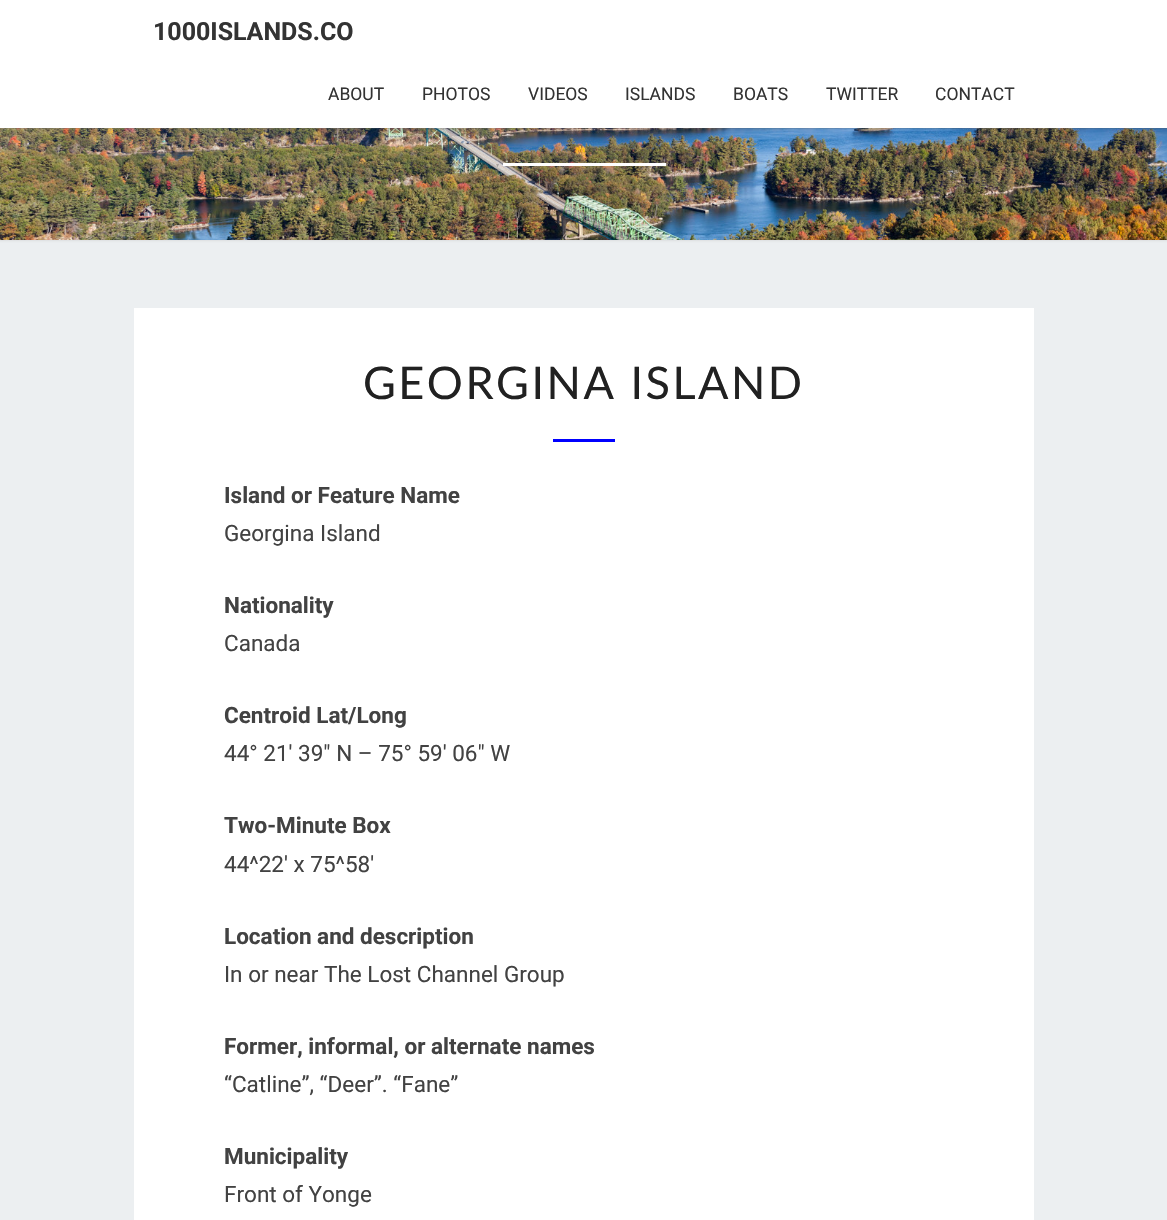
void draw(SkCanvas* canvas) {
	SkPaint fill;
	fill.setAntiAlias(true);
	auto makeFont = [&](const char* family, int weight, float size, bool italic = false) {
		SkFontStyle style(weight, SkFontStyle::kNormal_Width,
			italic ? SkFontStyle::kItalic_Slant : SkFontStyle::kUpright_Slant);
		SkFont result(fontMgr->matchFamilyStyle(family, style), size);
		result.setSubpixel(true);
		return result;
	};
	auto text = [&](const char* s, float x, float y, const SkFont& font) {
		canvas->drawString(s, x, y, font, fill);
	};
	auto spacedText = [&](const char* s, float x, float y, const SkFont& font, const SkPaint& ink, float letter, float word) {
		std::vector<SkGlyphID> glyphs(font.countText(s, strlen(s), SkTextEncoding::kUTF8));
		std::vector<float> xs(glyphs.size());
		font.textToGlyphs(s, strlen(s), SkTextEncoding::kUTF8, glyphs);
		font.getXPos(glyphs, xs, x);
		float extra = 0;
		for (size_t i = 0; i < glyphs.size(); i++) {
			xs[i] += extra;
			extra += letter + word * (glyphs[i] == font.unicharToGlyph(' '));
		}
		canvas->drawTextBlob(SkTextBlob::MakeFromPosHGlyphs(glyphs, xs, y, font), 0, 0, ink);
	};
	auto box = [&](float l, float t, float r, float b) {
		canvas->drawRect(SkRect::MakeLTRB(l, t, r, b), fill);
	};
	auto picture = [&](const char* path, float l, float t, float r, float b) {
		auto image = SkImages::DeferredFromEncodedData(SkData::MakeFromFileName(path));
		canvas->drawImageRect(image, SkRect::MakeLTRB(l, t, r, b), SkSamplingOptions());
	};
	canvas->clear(0xFFECEFF1);
	fill.setColor(0x4DB6B6B6);
	fill.setMaskFilter(SkMaskFilter::MakeBlur(kNormal_SkBlurStyle, 1));
	canvas->drawRect(SkRect::MakeLTRB(-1, -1, 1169, 241), fill);
	fill.setMaskFilter(nullptr);
	picture("image0.png", 0, 128, 1167, 240);
	fill.setColor(0xFFFFFFFF);
	box(503, 163, 666, 166);
	fill.setColor(0x33646464);
	fill.setMaskFilter(SkMaskFilter::MakeBlur(kNormal_SkBlurStyle, 0.5f));
	canvas->drawRect(SkRect::MakeLTRB(0, 1, 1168, 129), fill);
	fill.setMaskFilter(nullptr);
	fill.setColor(0xFFFFFFFF);
	box(0, 0, 1167, 128);
	box(134, 308, 1034, 1220);
	fill.setColor(0xFF0000FF);
	box(553, 439, 615, 442);
	auto font1 = makeFont("Roboto", 700, 25);
	fill.setColor(0xFF333333);
	text("1000ISLANDS.CO", 153, 40, font1);
	auto font2 = makeFont("Roboto", 400, 17.5f);
	text("ABOUT", 328, 100, font2);
	text("PHOTOS", 422, 100, font2);
	text("VIDEOS", 528, 100, font2);
	text("ISLANDS", 625, 100, font2);
	text("BOATS", 733, 100, font2);
	text("TWITTER", 826, 100, font2);
	text("CONTACT", 935, 100, font2);
	auto font3 = makeFont("Lato", 400, 45);
	fill.setColor(0xFF212121);
	spacedText("GEORGINA ISLAND", 363, 399, font3, fill, 2.5f, 0);
	auto font4 = makeFont("Roboto", 700, 22.5f);
	fill.setColor(0xFF424242);
	text("Island or Feature Name", 224, 503, font4);
	auto font5 = makeFont("Roboto", 400, 22.5f);
	text("Georgina Island", 224, 541, font5);
	text("Nationality", 224, 613, font4);
	text("Canada", 224, 651, font5);
	text("Centroid Lat/Long", 224, 723, font4);
	text("44° 21′ 39″ N – 75° 59′ 06″ W", 224, 761, font5);
	text("Two-Minute Box", 224, 833, font4);
	text("44^22′ x 75^58′", 224, 872, font5);
	text("Location and description", 224, 944, font4);
	text("In or near The Lost Channel Group", 224, 982, font5);
	text("Former, informal, or alternate names", 224, 1054, font4);
	text("“Catline”, “Deer”. “Fane”", 224, 1092, font5);
	text("Municipality", 224, 1164, font4);
	text("Front of Yonge", 224, 1202, font5);
}
